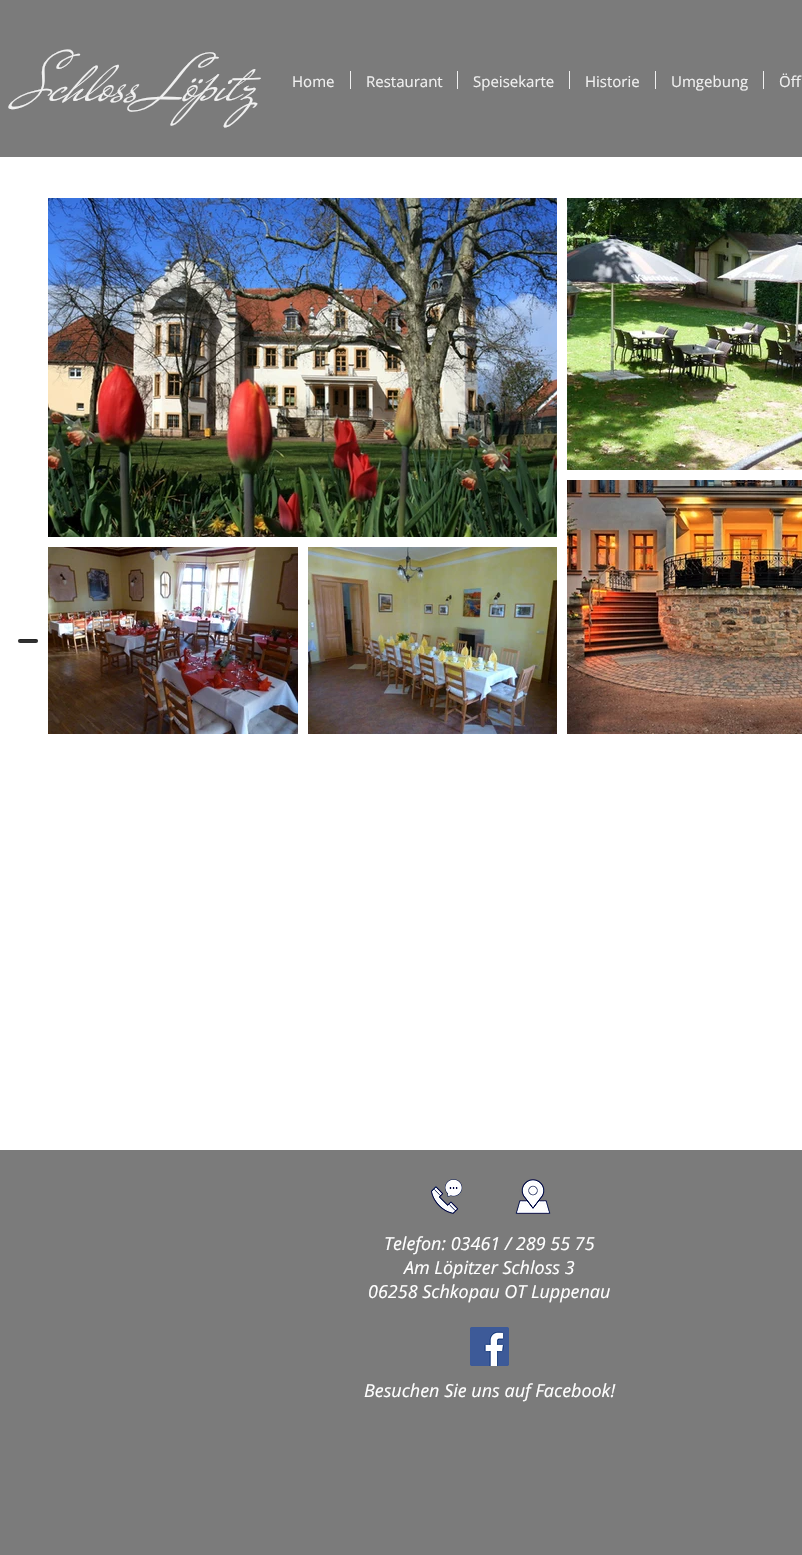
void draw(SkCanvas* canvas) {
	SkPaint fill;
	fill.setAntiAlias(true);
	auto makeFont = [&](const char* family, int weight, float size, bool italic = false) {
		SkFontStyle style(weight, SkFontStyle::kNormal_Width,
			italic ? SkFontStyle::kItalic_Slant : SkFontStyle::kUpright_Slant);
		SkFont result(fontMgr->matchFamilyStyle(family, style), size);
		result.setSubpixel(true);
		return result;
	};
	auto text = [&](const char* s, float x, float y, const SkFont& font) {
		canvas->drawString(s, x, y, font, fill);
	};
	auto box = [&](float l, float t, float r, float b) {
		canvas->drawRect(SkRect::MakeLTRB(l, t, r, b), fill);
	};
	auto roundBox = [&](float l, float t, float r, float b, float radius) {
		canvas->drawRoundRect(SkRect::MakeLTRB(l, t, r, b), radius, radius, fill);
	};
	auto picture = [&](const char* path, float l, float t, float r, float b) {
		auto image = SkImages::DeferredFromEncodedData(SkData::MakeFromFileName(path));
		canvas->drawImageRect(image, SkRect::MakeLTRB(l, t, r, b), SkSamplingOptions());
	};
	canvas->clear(0xFFFFFFFF);
	fill.setColor(0xFF7B7B7B);
	box(0, 0, 802, 157);
	fill.setColor(0xFFF0F0F0);
	box(350, 71, 351, 89);
	box(457, 71, 458, 89);
	box(569, 71, 570, 89);
	box(655, 71, 656, 89);
	box(763, 71, 764, 89);
	fill.setColor(0xFF303030);
	roundBox(18, 639, 38, 643, 2);
	fill.setColor(0x40000000);
	canvas->drawPath(SkPathBuilder().moveTo(20, 640).cubicTo(23, 640, 36, 639, 38, 641.5f).cubicTo(38.5f, 638.5f, 35, 639, 33.5f, 639).lineTo(22.5f, 639).cubicTo(21, 639, 17.5f, 638.5f, 18, 641.5f).cubicTo(18.5f, 640.5f, 19, 640, 20, 640).close().detach(), fill);
	picture("image0.png", 48, 198, 557, 537);
	picture("image1.png", 567, 198, 802, 470);
	picture("image2.png", 48, 547, 298, 734);
	picture("image3.png", 308, 547, 557, 734);
	picture("image4.png", 567, 480, 802, 734);
	fill.setColor(0xFF7B7B7B);
	box(0, 1150, 802, 1555);
	picture("image5.png", 430, 1179, 463, 1214);
	picture("image6.png", 515, 1179, 551, 1214);
	picture("image7.png", 470, 1327, 509, 1366);
	auto font1 = makeFont("Mr De Haviland", 400, 66, true);
	fill.setColor(0xFFF0F0F0);
	text("Schloss Löpitz", 20, 100, font1);
	auto font2 = makeFont("Open Sans", 400, 15);
	text("Home", 292, 87, font2);
	text("Restaurant", 366, 87, font2);
	text("Speisekarte", 473, 87, font2);
	text("Historie", 585, 87, font2);
	text("Umgebung", 671, 87, font2);
	text("Öff", 779, 87, font2);
	auto font3 = makeFont("Open Sans", 400, 18, true);
	fill.setColor(0xFFFFFFFF);
	text("Telefon: 03461 / 289 55 75", 384, 1250, font3);
	text("Am Löpitzer Schloss 3", 404, 1274, font3);
	text("06258 Schkopau OT Luppenau", 368, 1298, font3);
	text("Besuchen Sie uns auf Facebook!", 364, 1397, font3);
}
